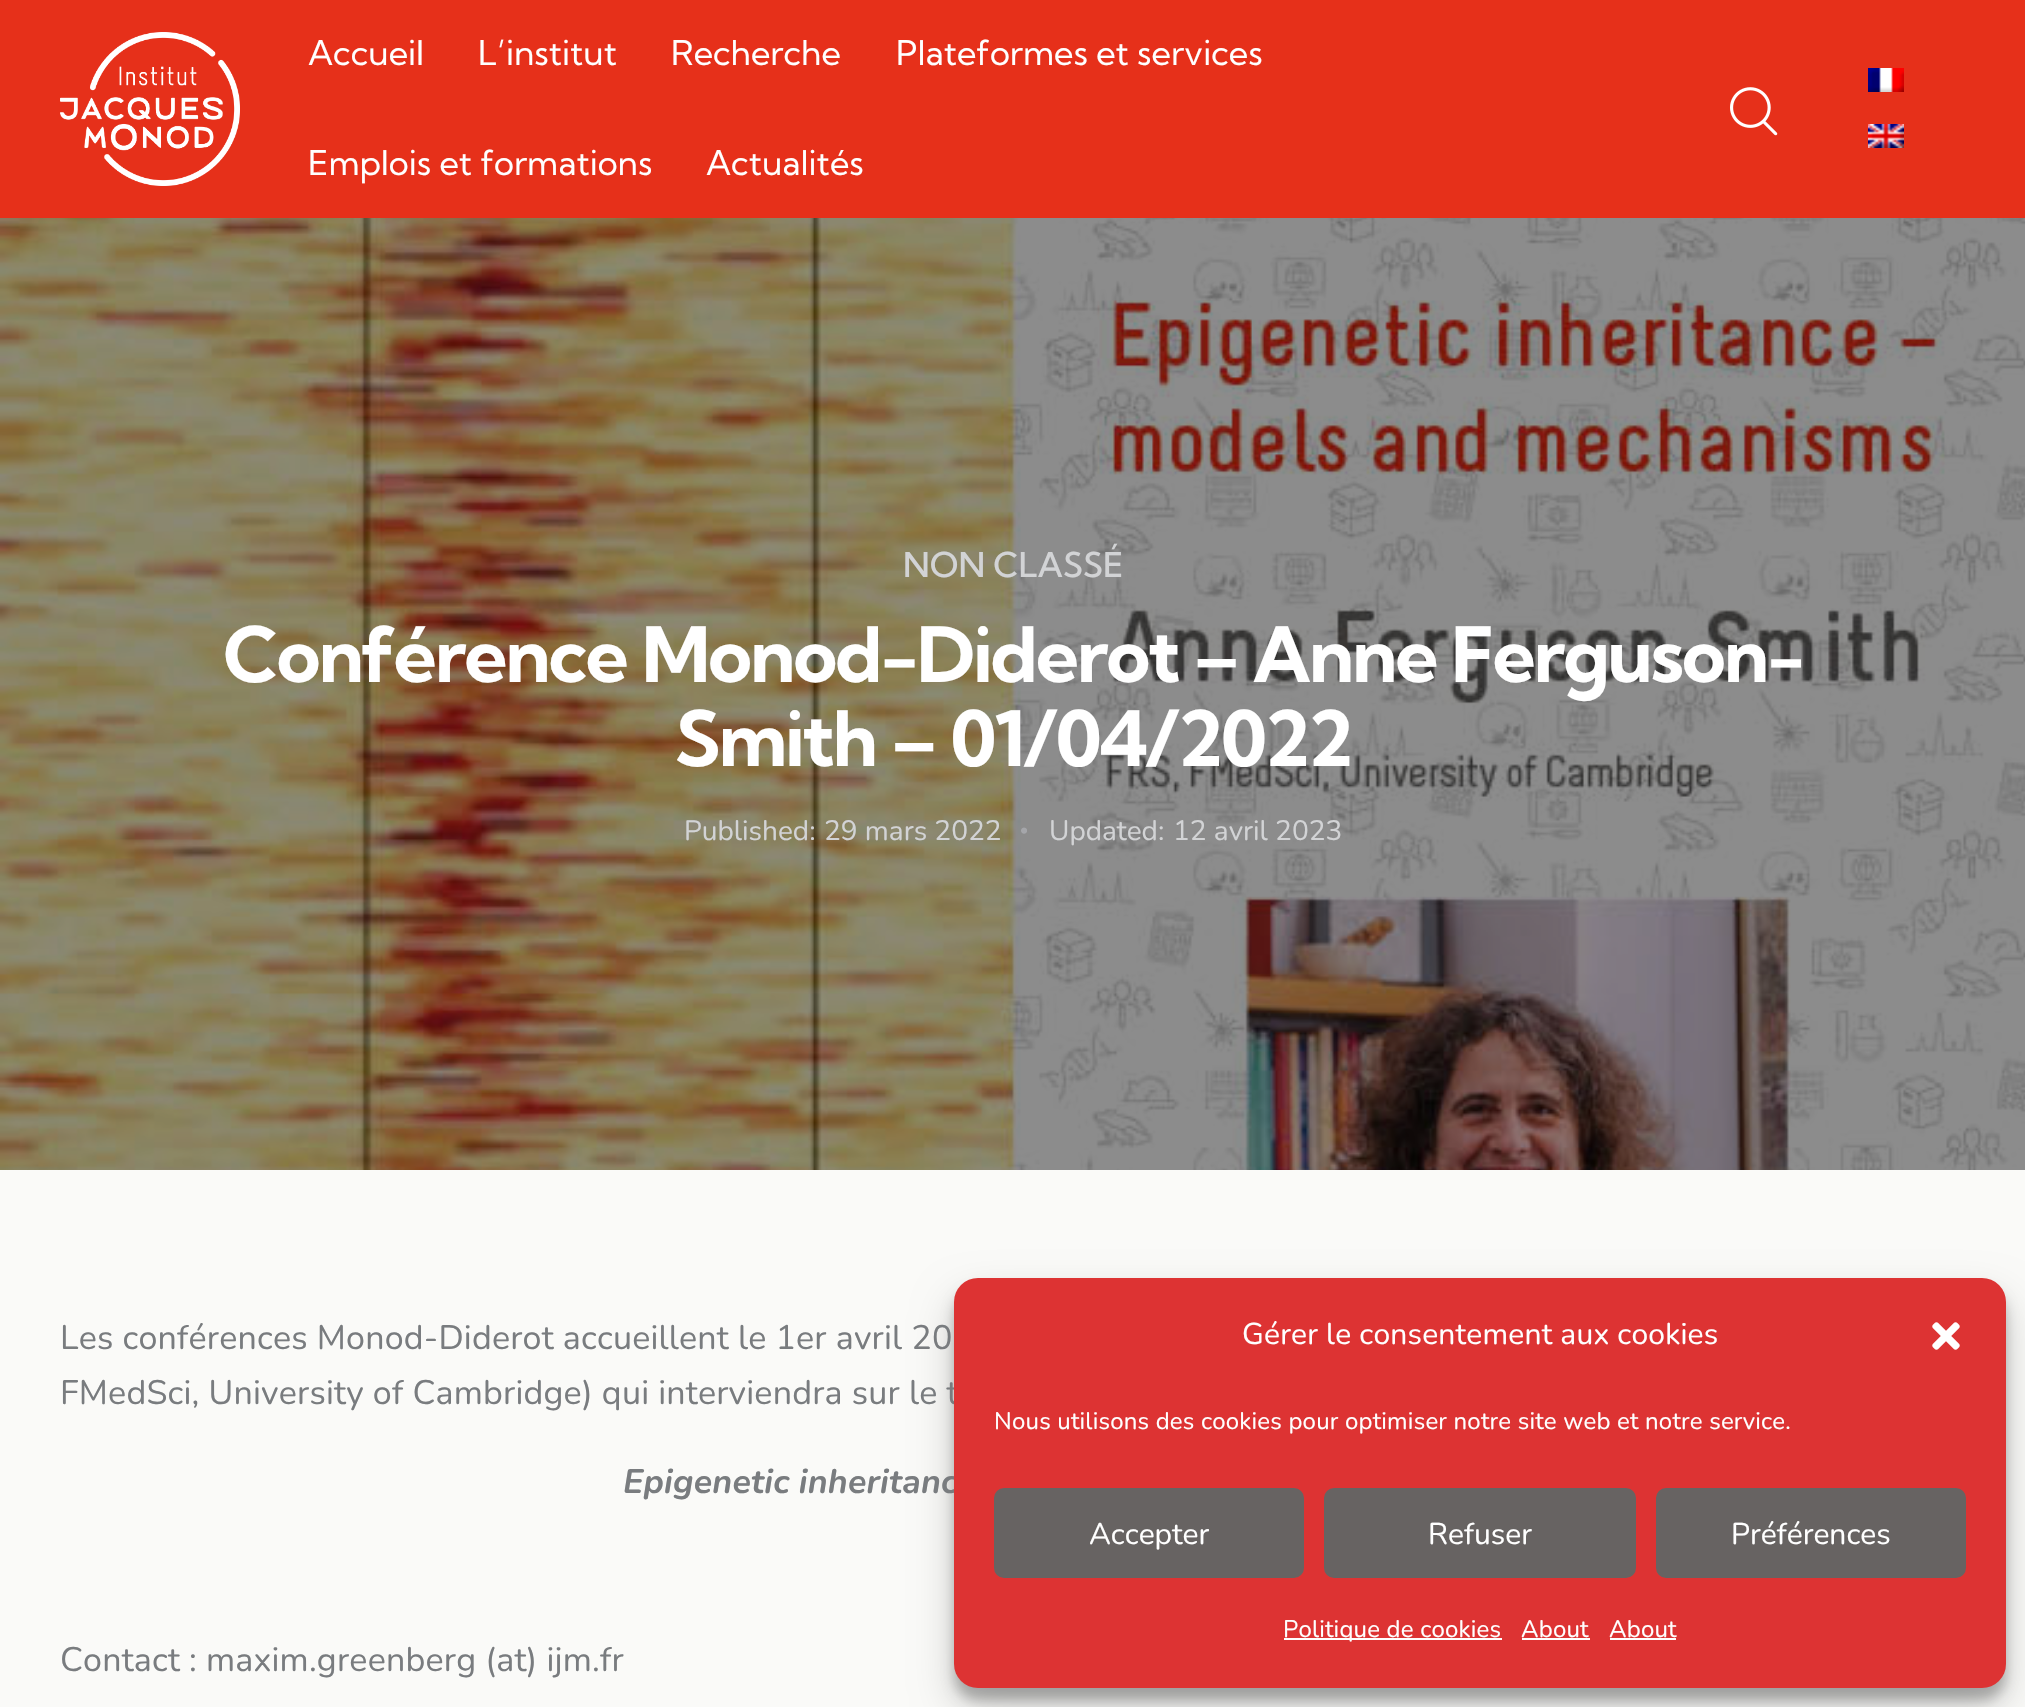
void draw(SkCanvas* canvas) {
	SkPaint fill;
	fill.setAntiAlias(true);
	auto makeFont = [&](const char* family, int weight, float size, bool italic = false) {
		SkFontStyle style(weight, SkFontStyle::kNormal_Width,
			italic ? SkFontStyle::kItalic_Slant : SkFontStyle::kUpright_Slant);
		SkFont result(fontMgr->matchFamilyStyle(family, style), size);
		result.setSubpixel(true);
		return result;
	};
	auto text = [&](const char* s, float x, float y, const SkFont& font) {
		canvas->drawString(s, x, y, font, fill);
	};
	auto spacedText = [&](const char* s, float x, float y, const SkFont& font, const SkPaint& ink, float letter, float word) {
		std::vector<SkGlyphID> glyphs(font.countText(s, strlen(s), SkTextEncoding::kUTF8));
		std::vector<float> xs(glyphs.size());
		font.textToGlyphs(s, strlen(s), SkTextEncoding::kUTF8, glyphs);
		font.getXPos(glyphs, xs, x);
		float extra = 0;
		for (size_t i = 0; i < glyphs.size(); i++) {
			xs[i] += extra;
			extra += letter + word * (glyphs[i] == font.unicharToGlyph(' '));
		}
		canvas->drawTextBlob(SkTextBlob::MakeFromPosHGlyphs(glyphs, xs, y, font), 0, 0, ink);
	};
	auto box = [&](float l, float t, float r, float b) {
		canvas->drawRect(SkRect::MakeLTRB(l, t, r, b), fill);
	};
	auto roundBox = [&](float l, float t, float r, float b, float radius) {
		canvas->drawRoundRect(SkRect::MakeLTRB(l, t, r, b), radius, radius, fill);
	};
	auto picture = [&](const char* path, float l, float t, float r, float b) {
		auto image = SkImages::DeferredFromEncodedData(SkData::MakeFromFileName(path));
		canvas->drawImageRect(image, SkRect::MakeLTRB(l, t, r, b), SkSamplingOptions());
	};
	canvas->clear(0xFFFAFAF8);
	fill.setColor(0xFFE6301A);
	box(0, 0, 2025, 218);
	picture("image0.png", 60, 32, 240, 186);
	picture("image1.png", 1730, 87, 1778, 136);
	picture("image2.png", 1868, 68, 1904, 92);
	picture("image3.png", 1868, 124, 1904, 148);
	picture("image4.png", 0, 218, 2025, 1170);
	picture("image5.png", 1021, 827, 1027, 834);
	fill.setColor(0x3B000000);
	fill.setMaskFilter(SkMaskFilter::MakeBlur(kNormal_SkBlurStyle, 6));
	canvas->drawRoundRect(SkRect::MakeLTRB(954, 1290, 2006, 1700), 24, 24, fill);
	fill.setMaskFilter(nullptr);
	fill.setColor(0x30000000);
	fill.setMaskFilter(SkMaskFilter::MakeBlur(kNormal_SkBlurStyle, 20));
	canvas->drawRoundRect(SkRect::MakeLTRB(954, 1298, 2006, 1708), 24, 24, fill);
	fill.setMaskFilter(nullptr);
	auto font1 = makeFont("Kumbh Sans", 400, 34);
	fill.setColor(0xFFFFFFFF);
	text("Accueil", 308, 65, font1);
	text("L’institut", 478, 65, font1);
	text("Recherche", 671, 65, font1);
	text("Plateformes et services", 896, 65, font1);
	text("Emplois et formations", 308, 175, font1);
	text("Actualités", 706, 175, font1);
	auto font2 = makeFont("Kumbh Sans", 500, 34);
	fill.setColor(0xFFD2D3D5);
	text("NON CLASSÉ", 903, 577, font2);
	auto font3 = makeFont("Kumbh Sans", 700, 76);
	fill.setColor(0xFFFFFFFF);
	spacedText("Conférence Monod-Diderot – Anne Ferguson-", 223, 682, font3, fill, -2.2f, 0);
	spacedText("Smith – 01/04/2022", 675, 766, font3, fill, -2.2f, 0);
	auto font4 = makeFont("Nunito", 400, 28);
	fill.setColor(0xFFD2D3D5);
	text("Published:", 684, 840, font4);
	text("29 mars 2022", 824, 840, font4);
	text("Updated:", 1049, 840, font4);
	text("12 avril 2023", 1173, 840, font4);
	auto font5 = makeFont("Nunito", 400, 34);
	fill.setColor(0xFF797C7F);
	spacedText("Les conférences Monod-Diderot accueillent le 1er avril 20", 60, 1349, font5, fill, 0.2f, 0);
	spacedText("FMedSci, University of Cambridge) qui interviendra sur le t", 60, 1404, font5, fill, 0.2f, 0);
	auto font6 = makeFont("Nunito", 700, 34, true);
	spacedText("Epigenetic inheritanc", 623, 1493, font6, fill, 0.2f, 0);
	spacedText("Contact : maxim.greenberg (at) ijm.fr", 60, 1671, font5, fill, 0.2f, 0);
	fill.setColor(0xFFDD3333);
	roundBox(954, 1278, 2006, 1688, 24);
	auto font7 = makeFont("Nunito", 400, 30);
	fill.setColor(0xFFFFFFFF);
	spacedText("Gérer le consentement aux cookies", 1242, 1344, font7, fill, 0.2f, 0);
	picture("image6.png", 1932, 1322, 1960, 1350);
	auto font8 = makeFont("Nunito", 400, 24);
	spacedText("Nous utilisons des cookies pour optimiser notre site web et notre service.", 994, 1429, font8, fill, 0.2f, 0);
	fill.setColor(0xFF676362);
	canvas->drawRoundRect(SkRect::MakeLTRB(995, 1489, 1303, 1577), 9, 9, fill);
	fill.setStyle(SkPaint::kStroke_Style);
	fill.setStrokeWidth(2);
	canvas->drawRoundRect(SkRect::MakeLTRB(995, 1489, 1303, 1577), 9, 9, fill);
	fill.setStyle(SkPaint::kFill_Style);
	fill.setColor(0xFFFFFFFF);
	text("Accepter", 1089, 1544, font7);
	fill.setColor(0xFF676362);
	canvas->drawRoundRect(SkRect::MakeLTRB(1325, 1489, 1635, 1577), 9, 9, fill);
	fill.setStyle(SkPaint::kStroke_Style);
	canvas->drawRoundRect(SkRect::MakeLTRB(1325, 1489, 1635, 1577), 9, 9, fill);
	fill.setStyle(SkPaint::kFill_Style);
	fill.setColor(0xFFFFFFFF);
	text("Refuser", 1428, 1544, font7);
	fill.setColor(0xFF676362);
	canvas->drawRoundRect(SkRect::MakeLTRB(1657, 1489, 1965, 1577), 9, 9, fill);
	fill.setStyle(SkPaint::kStroke_Style);
	canvas->drawRoundRect(SkRect::MakeLTRB(1657, 1489, 1965, 1577), 9, 9, fill);
	fill.setStyle(SkPaint::kFill_Style);
	fill.setColor(0xFFFFFFFF);
	text("Préférences", 1731, 1544, font7);
	box(1284, 1638, 1502, 1640);
	spacedText("Politique de cookies", 1283, 1637, font8, fill, 0.2f, 0);
	spacedText("About", 1521, 1637, font8, fill, 0.2f, 0);
	box(1522, 1638, 1590, 1640);
	spacedText("About", 1609, 1637, font8, fill, 0.2f, 0);
	box(1610, 1638, 1676, 1640);
}
